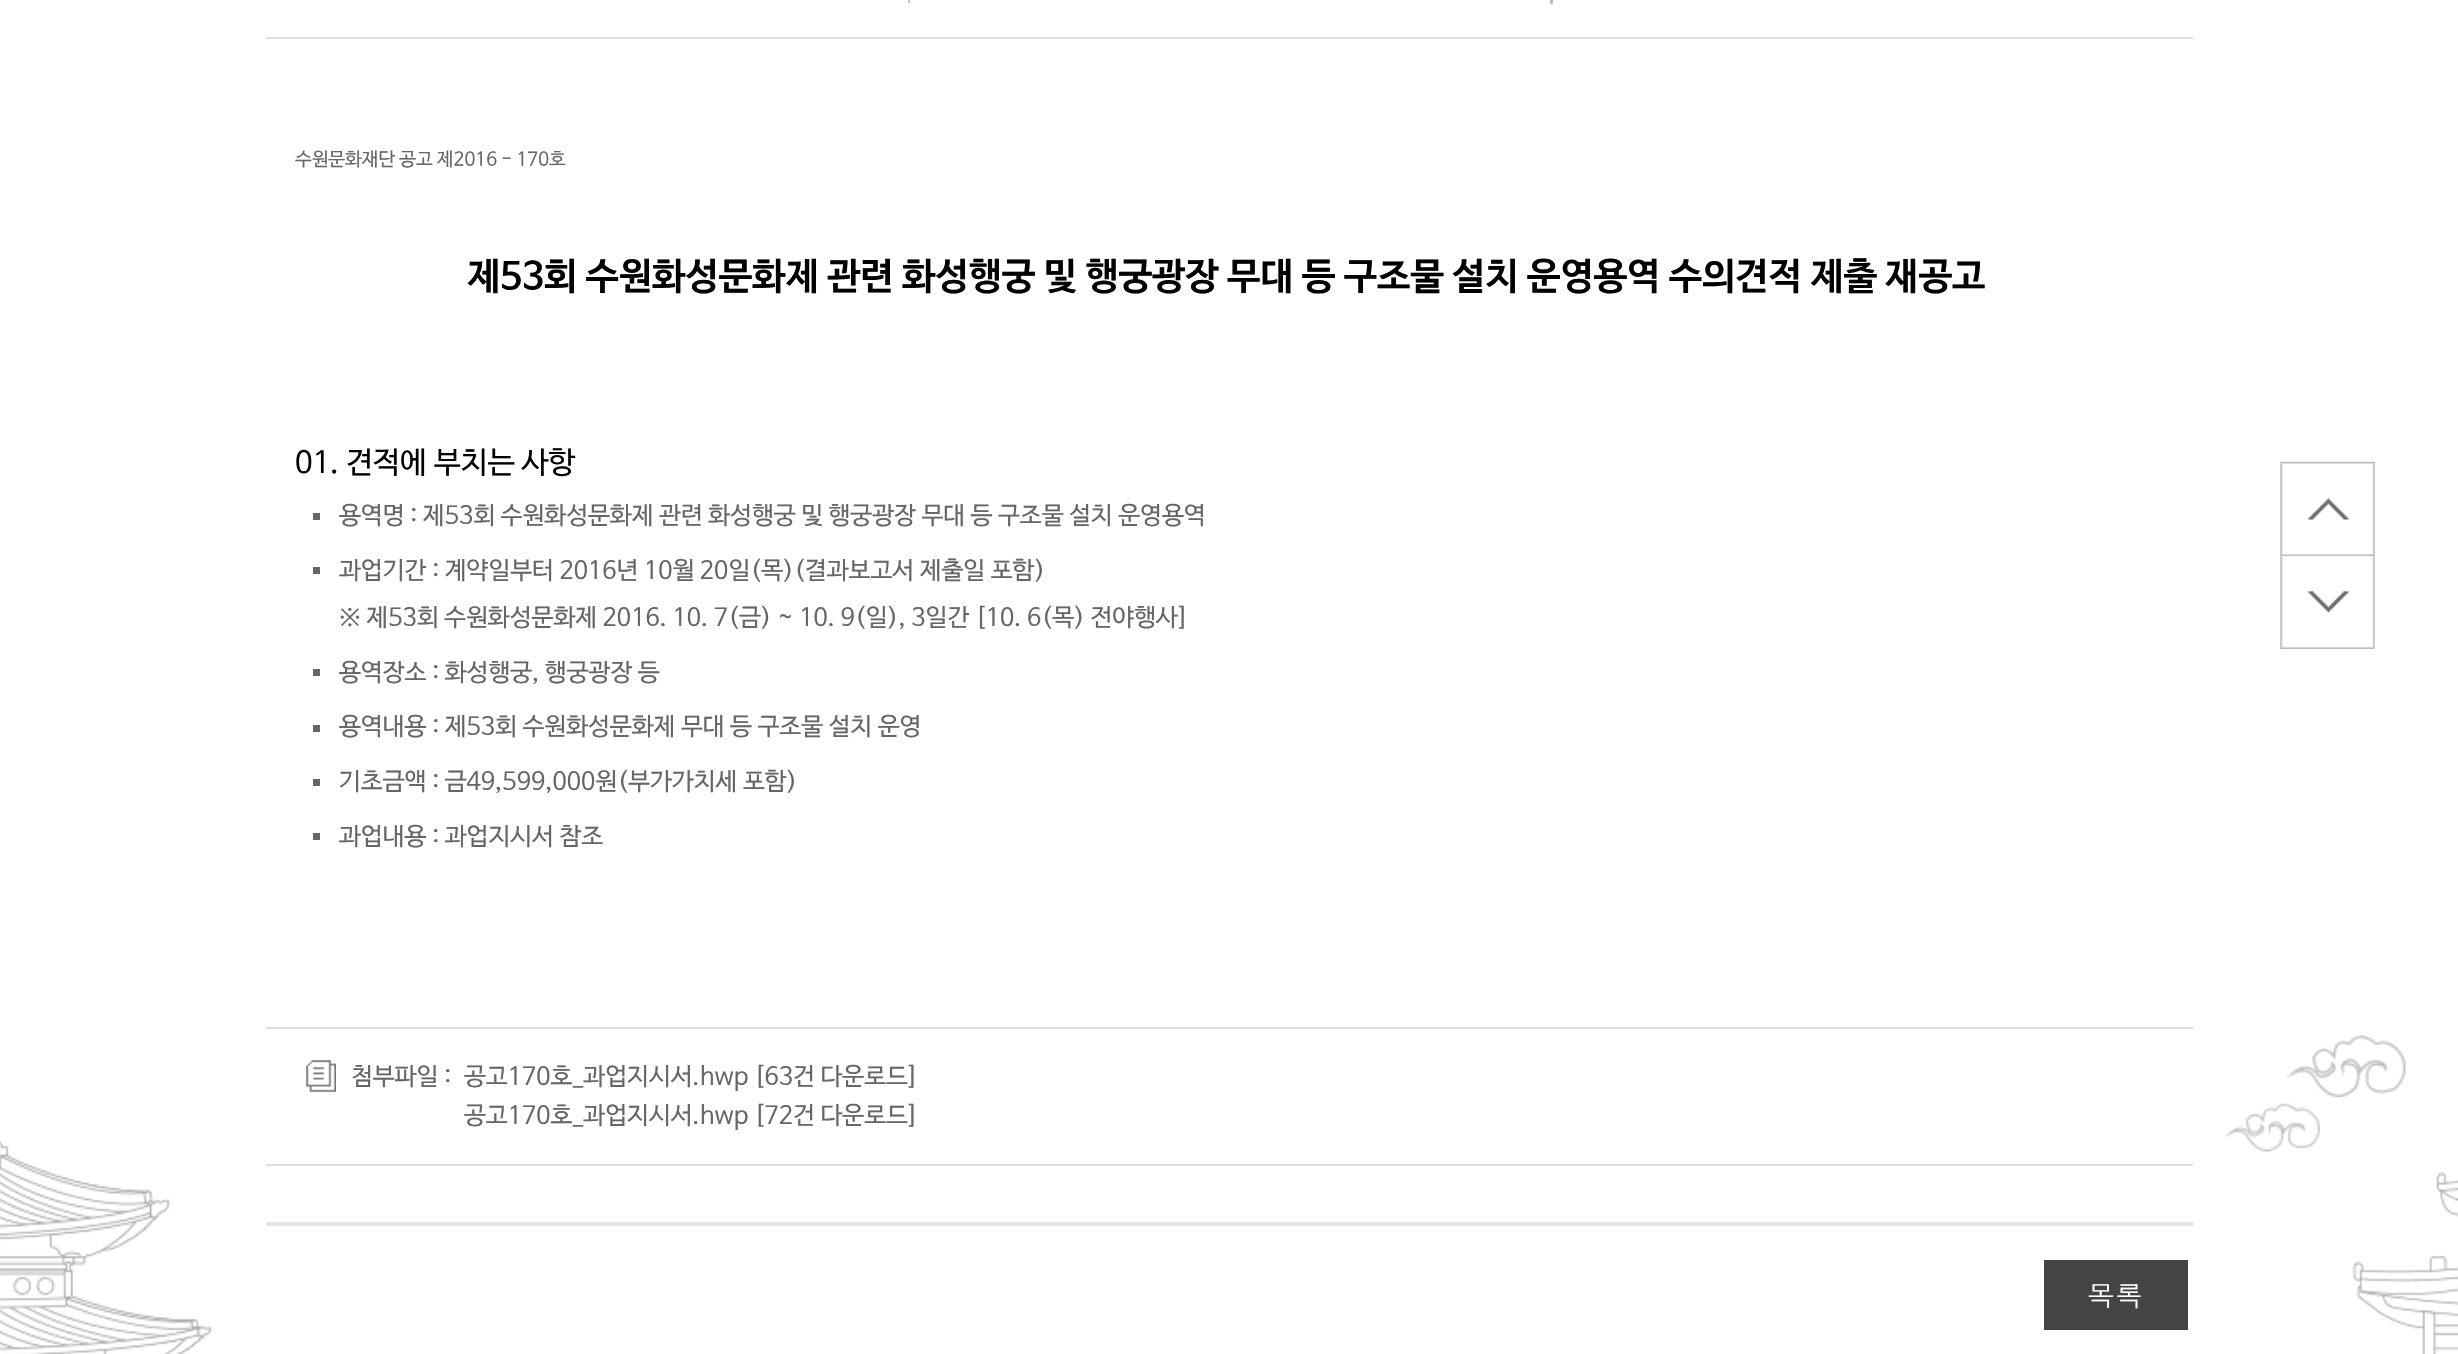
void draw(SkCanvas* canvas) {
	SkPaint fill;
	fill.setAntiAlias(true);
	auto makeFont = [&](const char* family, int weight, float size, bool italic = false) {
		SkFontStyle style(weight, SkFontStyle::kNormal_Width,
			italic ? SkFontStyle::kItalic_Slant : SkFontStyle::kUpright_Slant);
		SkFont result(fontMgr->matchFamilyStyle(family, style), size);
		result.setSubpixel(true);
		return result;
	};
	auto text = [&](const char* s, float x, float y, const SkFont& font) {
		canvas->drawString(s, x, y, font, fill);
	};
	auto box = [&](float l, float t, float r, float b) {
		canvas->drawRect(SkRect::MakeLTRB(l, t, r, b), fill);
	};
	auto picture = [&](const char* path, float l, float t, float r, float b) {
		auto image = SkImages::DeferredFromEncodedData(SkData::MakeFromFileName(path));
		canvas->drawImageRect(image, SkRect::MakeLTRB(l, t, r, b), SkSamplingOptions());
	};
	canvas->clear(0xFFFFFFFF);
	picture("image0.png", 0, 1035, 2458, 1354);
	fill.setColor(0xFFE5E5E5);
	box(268, 1222, 2193, 1226);
	fill.setColor(0xFFBCBCBC);
	box(1550, 0, 1553, 4);
	fill.setColor(0xFFDDDDDD);
	box(266, 37, 2193, 39);
	picture("image1.png", 908, 0, 910, 4);
	box(266, 1027, 2193, 1029);
	fill.setColor(0xFF666666);
	box(313, 513, 320, 520);
	box(313, 567, 320, 574);
	box(313, 669, 320, 676);
	box(313, 725, 320, 732);
	box(313, 779, 320, 786);
	box(313, 833, 320, 840);
	fill.setColor(0xFFDDDDDD);
	box(266, 1164, 2193, 1166);
	picture("image2.png", 306, 1060, 336, 1092);
	box(266, 1223, 268, 1225);
	fill.setColor(0xFF444444);
	box(2044, 1260, 2188, 1330);
	picture("image3.png", 2280, 461, 2375, 557);
	picture("image4.png", 2280, 556, 2375, 649);
	auto font1 = makeFont("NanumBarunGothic", 400, 18.7f);
	fill.setColor(0xFF666666);
	text("수원문화재단 공고 제2016 - 170호", 295, 165, font1);
	auto font2 = makeFont("NanumBarunGothic", 700, 37.35f);
	fill.setColor(0xFF000000);
	text("제53회 수원화성문화제 관련 화성행궁 및 행궁광장 무대 등 구조물 설치 운영용역 수의견적 제출 재공고", 467, 288, font2);
	auto font3 = makeFont("NanumBarunGothic", 400, 30.25f);
	text("01. 견적에 부치는 사항", 295, 472, font3);
	auto font4 = makeFont("NanumBarunGothic", 400, 24.5f);
	fill.setColor(0xFF666666);
	text("용역명 : 제53회 수원화성문화제 관련 화성행궁 및 행궁광장 무대 등 구조물 설치 운영용역", 339, 523, font4);
	text("과업기간 : 계약일부터 2016년 10월 20일(목)(결과보고서 제출일 포함)", 339, 578, font4);
	text("※ 제53회 수원화성문화제 2016. 10. 7(금) ~ 10. 9(일), 3일간 [10. 6(목) 전야행사]", 339, 625, font4);
	text("용역장소 : 화성행궁, 행궁광장 등", 339, 680, font4);
	text("용역내용 : 제53회 수원화성문화제 무대 등 구조물 설치 운영", 339, 734, font4);
	text("기초금액 : 금49,599,000원(부가가치세 포함)", 339, 789, font4);
	text("과업내용 : 과업지시서 참조", 339, 844, font4);
	text("첨부파일 :", 351, 1084, font4);
	text("공고170호_과업지시서.hwp [63건 다운로드]", 464, 1084, font4);
	text("공고170호_과업지시서.hwp [72건 다운로드]", 464, 1123, font4);
	auto font5 = makeFont("Dotum", 400, 28);
	fill.setColor(0xFFFFFFFF);
	text("목록", 2087, 1306, font5);
}
